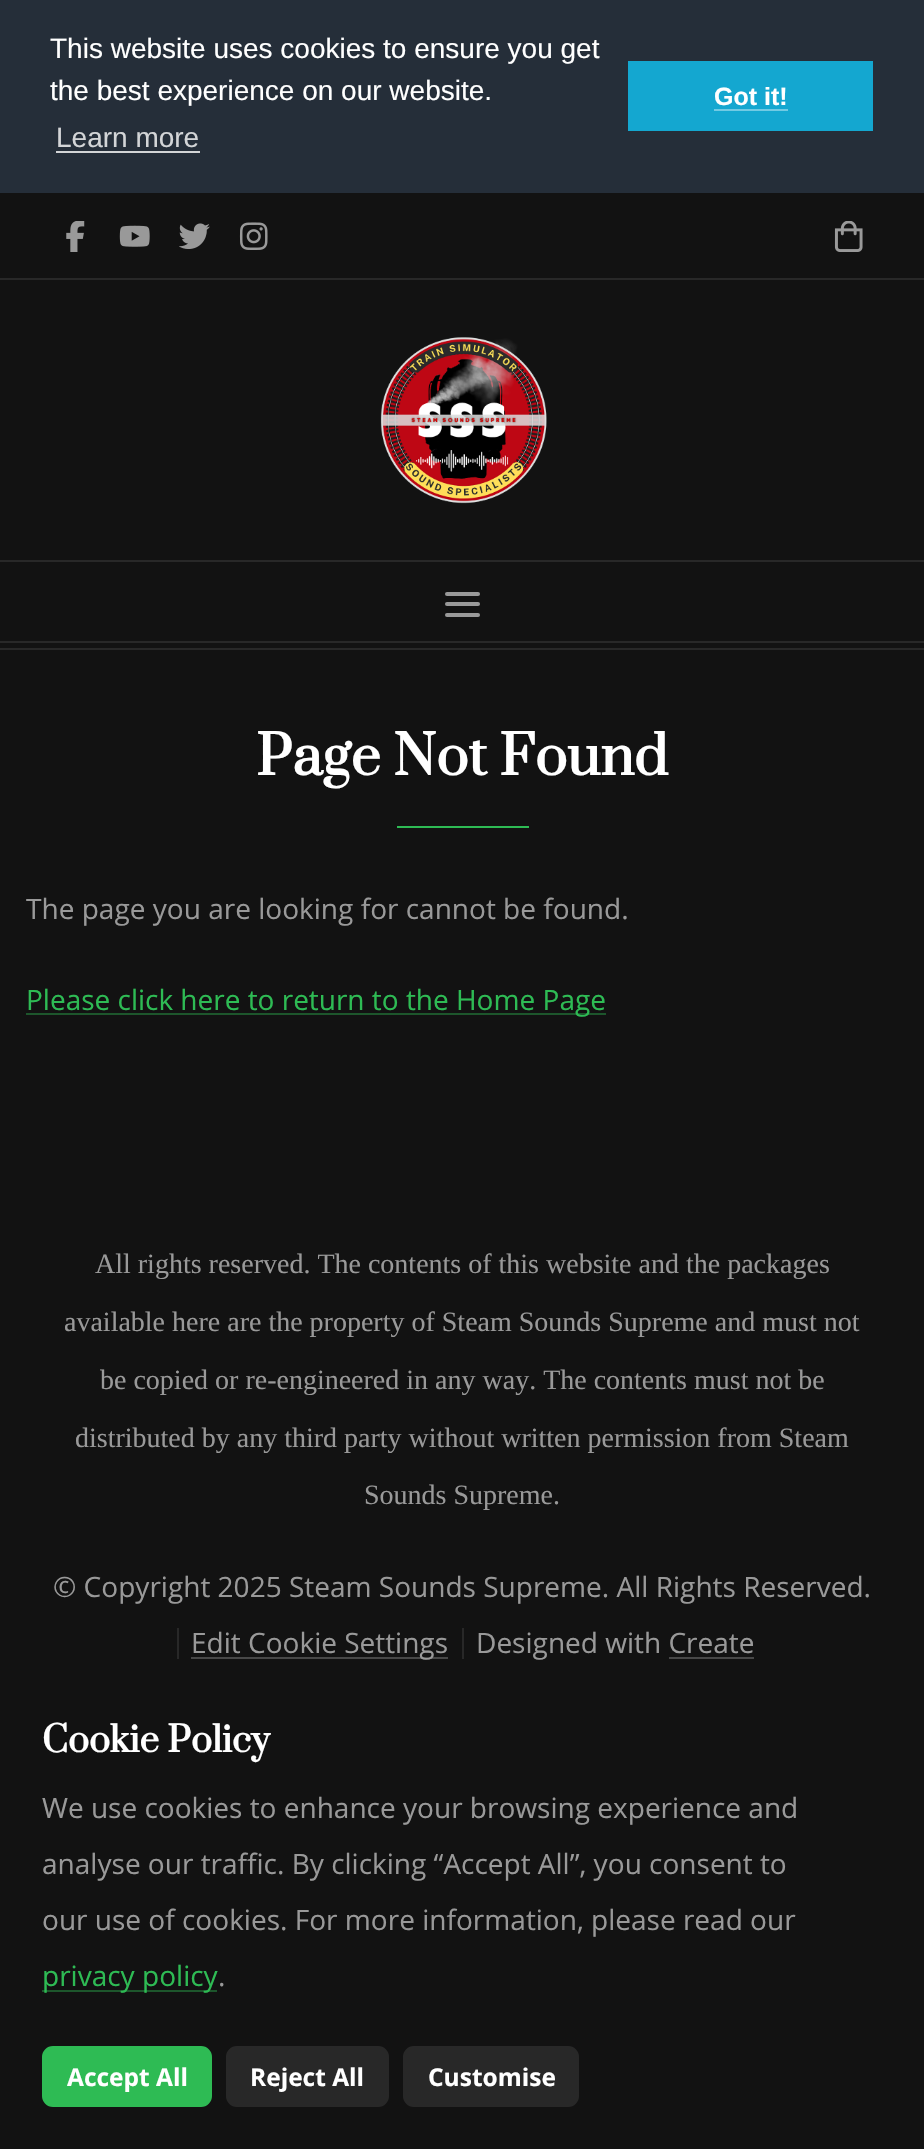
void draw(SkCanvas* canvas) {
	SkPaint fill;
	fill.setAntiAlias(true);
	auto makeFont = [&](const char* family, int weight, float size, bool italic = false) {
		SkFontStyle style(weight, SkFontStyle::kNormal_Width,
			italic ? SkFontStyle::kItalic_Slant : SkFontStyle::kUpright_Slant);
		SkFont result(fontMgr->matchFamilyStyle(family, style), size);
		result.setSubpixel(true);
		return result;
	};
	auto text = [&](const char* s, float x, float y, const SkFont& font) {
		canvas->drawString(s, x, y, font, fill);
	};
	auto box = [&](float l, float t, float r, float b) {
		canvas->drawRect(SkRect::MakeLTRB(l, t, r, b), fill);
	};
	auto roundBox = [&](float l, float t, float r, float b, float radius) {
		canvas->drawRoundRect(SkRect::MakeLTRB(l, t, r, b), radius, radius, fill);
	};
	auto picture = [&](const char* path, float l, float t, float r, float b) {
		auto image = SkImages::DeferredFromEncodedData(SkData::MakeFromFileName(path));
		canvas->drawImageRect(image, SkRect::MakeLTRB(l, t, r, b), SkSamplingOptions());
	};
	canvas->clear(0xFF121212);
	fill.setColor(0xFF252E39);
	box(0, 0, 924, 193);
	fill.setColor(0xFFD3D5D7);
	box(56, 151, 200, 153);
	fill.setColor(0xFF14A7D0);
	box(628, 61, 873, 131);
	fill.setColor(0xFF72CAE3);
	box(714, 109, 788, 111);
	fill.setColor(0xFF282828);
	box(0, 648, 924, 650);
	box(0, 278, 924, 280);
	picture("image0.png", 66, 221, 85, 252);
	picture("image1.png", 119, 225, 150, 247);
	picture("image2.png", 179, 223, 210, 249);
	picture("image3.png", 239, 222, 268, 250);
	picture("image4.png", 834, 221, 863, 252);
	picture("image5.png", 380, 337, 547, 504);
	box(0, 560, 924, 562);
	fill.setColor(0xFF999999);
	roundBox(445, 602, 480, 606, 2);
	roundBox(445, 592, 480, 596, 2);
	roundBox(445, 613, 480, 617, 2);
	fill.setColor(0xFF282828);
	box(0, 641, 924, 643);
	fill.setColor(0xFF2EBB54);
	box(397, 826, 529, 828);
	fill.setColor(0xFF1D562C);
	box(26, 1013, 606, 1015);
	fill.setColor(0xFF282828);
	box(177, 1628, 179, 1659);
	fill.setColor(0xFF484848);
	box(191, 1657, 448, 1659);
	fill.setColor(0xFF282828);
	box(462, 1628, 464, 1659);
	fill.setColor(0xFF1D562C);
	box(42, 1990, 217, 1992);
	fill.setColor(0xFF2EBB54);
	canvas->drawRoundRect(SkRect::MakeLTRB(44, 2048, 210, 2105), 9, 9, fill);
	fill.setStyle(SkPaint::kStroke_Style);
	fill.setStrokeWidth(4);
	canvas->drawRoundRect(SkRect::MakeLTRB(44, 2048, 210, 2105), 9, 9, fill);
	fill.setStyle(SkPaint::kFill_Style);
	fill.setColor(0xFF282828);
	canvas->drawRoundRect(SkRect::MakeLTRB(228, 2048, 387, 2105), 9, 9, fill);
	fill.setStyle(SkPaint::kStroke_Style);
	canvas->drawRoundRect(SkRect::MakeLTRB(228, 2048, 387, 2105), 9, 9, fill);
	fill.setStyle(SkPaint::kFill_Style);
	canvas->drawRoundRect(SkRect::MakeLTRB(405, 2048, 577, 2105), 9, 9, fill);
	fill.setStyle(SkPaint::kStroke_Style);
	canvas->drawRoundRect(SkRect::MakeLTRB(405, 2048, 577, 2105), 9, 9, fill);
	auto font1 = makeFont("Liberation Sans", 400, 28);
	fill.setStyle(SkPaint::kFill_Style);
	fill.setColor(0xFFFFFFFF);
	text("This website uses cookies to ensure you get", 50, 58, font1);
	text("the best experience on our website.", 50, 100, font1);
	fill.setColor(0xFFD3D5D7);
	text("Learn more", 56, 147, font1);
	auto font2 = makeFont("Liberation Sans", 700, 25);
	fill.setColor(0xFFFFFFFF);
	text("Got it!", 714, 105, font2);
	auto font3 = makeFont("Prata", 700, 53);
	text("Page Not Found", 256, 775, font3);
	auto font4 = makeFont("Open Sans", 400, 28);
	fill.setColor(0xFF999999);
	text("The page you are looking for cannot be found.", 26, 919, font4);
	fill.setColor(0xFF2EBB54);
	text("Please click here to return to the Home Page", 26, 1010, font4);
	auto font5 = makeFont("Liberation Serif", 400, 28);
	fill.setColor(0xFF999999);
	text("All rights reserved. The contents of this website and the packages", 95, 1273, font5);
	text("available here are the property of Steam Sounds Supreme and must not", 64, 1331, font5);
	text("be copied or re-engineered in any way. The contents must not be", 100, 1389, font5);
	text("distributed by any third party without written permission from Steam", 75, 1447, font5);
	text("Sounds Supreme.", 364, 1504, font5);
	text("© Copyright 2025 Steam Sounds Supreme. All Rights Reserved.", 53, 1597, font4);
	text("Edit Cookie Settings", 191, 1653, font4);
	text("Designed with Create", 476, 1653, font4);
	fill.setColor(0xFF484848);
	box(669, 1657, 754, 1659);
	auto font6 = makeFont("Prata", 700, 34.75f);
	fill.setColor(0xFFFFFFFF);
	text("Cookie Policy", 42, 1752, font6);
	fill.setColor(0xFF999999);
	text("We use cookies to enhance your browsing experience and", 42, 1818, font4);
	text("analyse our traffic. By clicking “Accept All”, you consent to", 42, 1874, font4);
	text("our use of cookies. For more information, please read our", 42, 1930, font4);
	fill.setColor(0xFF2EBB54);
	text("privacy policy", 42, 1986, font4);
	fill.setColor(0xFF999999);
	text(".", 218, 1986, font4);
	auto font7 = makeFont("Open Sans", 700, 24.5f);
	fill.setColor(0xFFFFFFFF);
	text("Accept All", 67, 2086, font7);
	text("Reject All", 250, 2086, font7);
	text("Customise", 428, 2086, font7);
}
